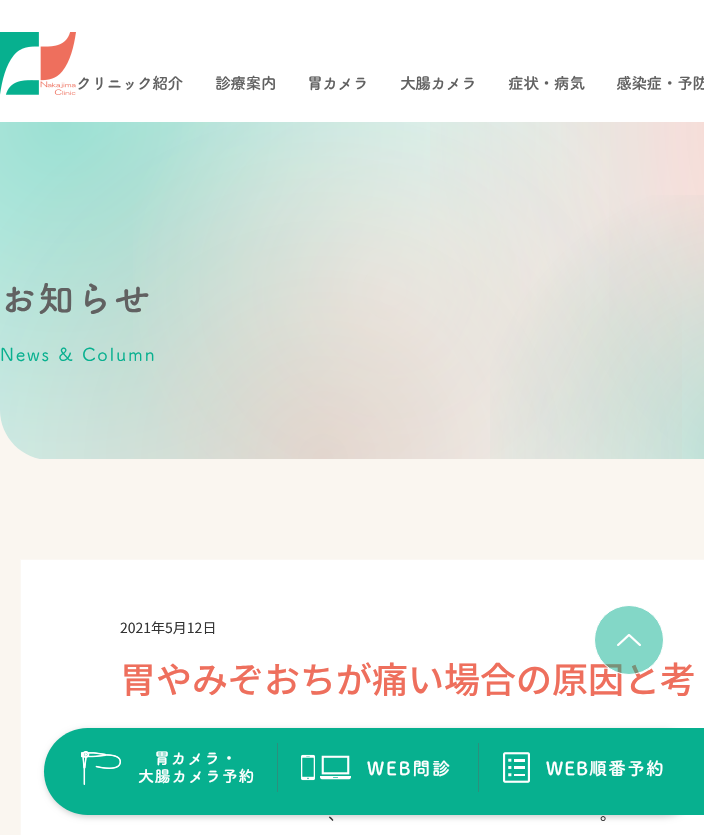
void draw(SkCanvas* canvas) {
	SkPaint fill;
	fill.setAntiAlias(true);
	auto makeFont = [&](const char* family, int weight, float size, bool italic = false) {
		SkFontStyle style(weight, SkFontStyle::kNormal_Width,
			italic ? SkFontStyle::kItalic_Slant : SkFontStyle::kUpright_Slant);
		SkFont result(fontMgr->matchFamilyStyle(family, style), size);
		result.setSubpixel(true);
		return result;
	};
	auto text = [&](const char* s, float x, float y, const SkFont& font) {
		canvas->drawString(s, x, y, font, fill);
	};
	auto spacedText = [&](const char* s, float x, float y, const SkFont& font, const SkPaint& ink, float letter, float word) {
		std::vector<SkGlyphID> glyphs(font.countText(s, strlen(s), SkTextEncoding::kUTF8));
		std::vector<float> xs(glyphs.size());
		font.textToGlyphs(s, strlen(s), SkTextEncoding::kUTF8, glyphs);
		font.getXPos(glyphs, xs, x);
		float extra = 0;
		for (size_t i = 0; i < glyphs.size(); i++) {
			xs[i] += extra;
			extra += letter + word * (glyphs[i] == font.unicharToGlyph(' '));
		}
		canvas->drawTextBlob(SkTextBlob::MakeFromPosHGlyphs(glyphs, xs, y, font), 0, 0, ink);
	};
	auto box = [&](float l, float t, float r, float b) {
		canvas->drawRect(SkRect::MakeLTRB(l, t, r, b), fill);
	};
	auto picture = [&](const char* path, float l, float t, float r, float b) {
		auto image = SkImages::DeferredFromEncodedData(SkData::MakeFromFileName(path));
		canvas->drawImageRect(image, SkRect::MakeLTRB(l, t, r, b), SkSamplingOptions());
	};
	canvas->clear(0xFFFFFFFF);
	picture("image0.png", 0, 32, 76, 95);
	{
		const SkColor colors[] = {0xFF9CE0D3, 0xFFFFFFFF};
		const float stops[] = {0, 0.7f};
		fill.setShader(SkGradientShader::MakeRadial({61, 122}, 979, colors, stops, 2, SkTileMode::kClamp));
		fill.setAlpha(255);
	}
	box(0, 122, 704, 459);
	{
		const SkColor colors[] = {0x63EE6F5D, 0x00EE6F5D};
		const float stops[] = {0, 0.54f};
		fill.setShader(SkGradientShader::MakeRadial({939, 122}, 998, colors, stops, 2, SkTileMode::kClamp));
		fill.setAlpha(255);
	}
	box(430, 122, 704, 459);
	{
		const SkColor colors[] = {0x8FFAF6F0, 0x00FAF6F0};
		const float stops[] = {0, 0.45f};
		fill.setShader(SkGradientShader::MakeRadial({392, 291}, 612, colors, stops, 2, SkTileMode::kClamp));
		fill.setAlpha(255);
	}
	box(133, 122, 609, 459);
	{
		const SkColor colors[] = {0x4D07B08F, 0x0007B08F};
		const float stops[] = {0, 0.35f};
		fill.setShader(SkGradientShader::MakeRadial({760, 459}, 831, colors, stops, 2, SkTileMode::kClamp));
		fill.setAlpha(255);
	}
	box(490, 195, 704, 459);
	{
		const SkColor colors[] = {0x38EE6F5D, 0x00EE6F5D};
		const float stops[] = {0, 0.54f};
		fill.setShader(SkGradientShader::MakeRadial({323, 459}, 739, colors, stops, 2, SkTileMode::kClamp));
		fill.setAlpha(255);
	}
	box(0, 122, 682, 459);
	fill.setShader(nullptr);
	fill.setColor(0xFFFAF6F0);
	canvas->drawPath(SkPathBuilder().moveTo(50, 460).lineTo(0, 460).lineTo(0, 410).cubicTo(0, 437, 22, 460, 50, 460).detach(), fill);
	box(0, 459, 704, 835);
	fill.setColor(0xFFFFFFFF);
	canvas->drawRect(SkRect::MakeLTRB(20.5f, 559.5f, 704.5f, 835.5f), fill);
	fill.setStyle(SkPaint::kStroke_Style);
	fill.setStrokeWidth(1);
	fill.setColor(0xFFFBF8F4);
	canvas->drawRect(SkRect::MakeLTRB(20.5f, 559.5f, 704.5f, 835.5f), fill);
	fill.setStyle(SkPaint::kFill_Style);
	fill.setColor(0x33000000);
	fill.setMaskFilter(SkMaskFilter::MakeBlur(kNormal_SkBlurStyle, 3));
	canvas->drawRoundRect(SkRect::MakeLTRB(45, 730, 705, 817), 43.5f, 43.5f, fill);
	fill.setMaskFilter(nullptr);
	fill.setColor(0xFF07B08F);
	canvas->drawPath(SkPathBuilder().moveTo(87.5f, 728).lineTo(704, 728).lineTo(704, 815).lineTo(87.5f, 815).cubicTo(63.5f, 815, 44, 795.5f, 44, 771.5f).cubicTo(44, 747.5f, 63.5f, 728, 87.5f, 728).close().detach(), fill);
	picture("image2.png", 81, 751, 121, 785);
	fill.setColor(0xFF2B907D);
	box(277, 743, 278, 792);
	picture("image3.png", 301, 754, 315, 781);
	picture("image4.png", 320, 755, 351, 780);
	box(478, 743, 479, 792);
	picture("image5.png", 503, 752, 530, 783);
	auto font1 = makeFont("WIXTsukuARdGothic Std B", 700, 16);
	fill.setColor(0xFF616161);
	spacedText("クリニック紹介", 76, 89, font1, fill, -0.75f, 0);
	spacedText("診療案内", 215, 89, font1, fill, -0.75f, 0);
	spacedText("胃カメラ", 307, 89, font1, fill, -0.75f, 0);
	spacedText("大腸カメラ", 400, 89, font1, fill, -0.75f, 0);
	spacedText("症状・病気", 508, 89, font1, fill, -0.75f, 0);
	spacedText("感染症・予防", 616, 89, font1, fill, -0.75f, 0);
	auto font2 = makeFont("WIXTsukuARdGothic Std B", 700, 36);
	spacedText("お知らせ", 0, 312, font2, fill, 2, 0);
	auto font3 = makeFont("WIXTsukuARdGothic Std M", 500, 18);
	fill.setColor(0xFF07B08F);
	spacedText("News & Column", 0, 361, font3, fill, 1.75f, 0);
	auto font4 = makeFont("Noto Sans JP", 400, 14);
	fill.setColor(0xFF333333);
	text("2021年5月12日", 120, 633, font4);
	auto font5 = makeFont("Noto Sans JP", 500, 36);
	fill.setColor(0xFFEE6F5D);
	text("胃やみぞおちが痛い場合の原因と考", 120, 693, font5);
	auto font6 = makeFont("Noto Sans JP", 400, 16);
	fill.setColor(0xFF333333);
	text("、", 328, 820, font6);
	text("。", 600, 820, font6);
	fill.setColor(0x8007B08F);
	canvas->drawCircle(629, 640, 34.5f, fill);
	fill.setStyle(SkPaint::kStroke_Style);
	fill.setColor(0xFFFFFFFF);
	canvas->drawCircle(629, 640, 34.5f, fill);
	picture("image1.png", 617, 634, 641, 646);
	fill.setStyle(SkPaint::kFill_Style);
	spacedText("胃カメラ・", 154, 764, font1, fill, 0.75f, 0);
	spacedText("大腸カメラ予約", 138, 782, font1, fill, 0.75f, 0);
	auto font7 = makeFont("WIXTsukuARdGothic Std B", 700, 18);
	spacedText("WEB問診", 367, 775, font7, fill, 1.75f, 0);
	spacedText("WEB順番予約", 546, 775, font7, fill, 1, 0);
}
